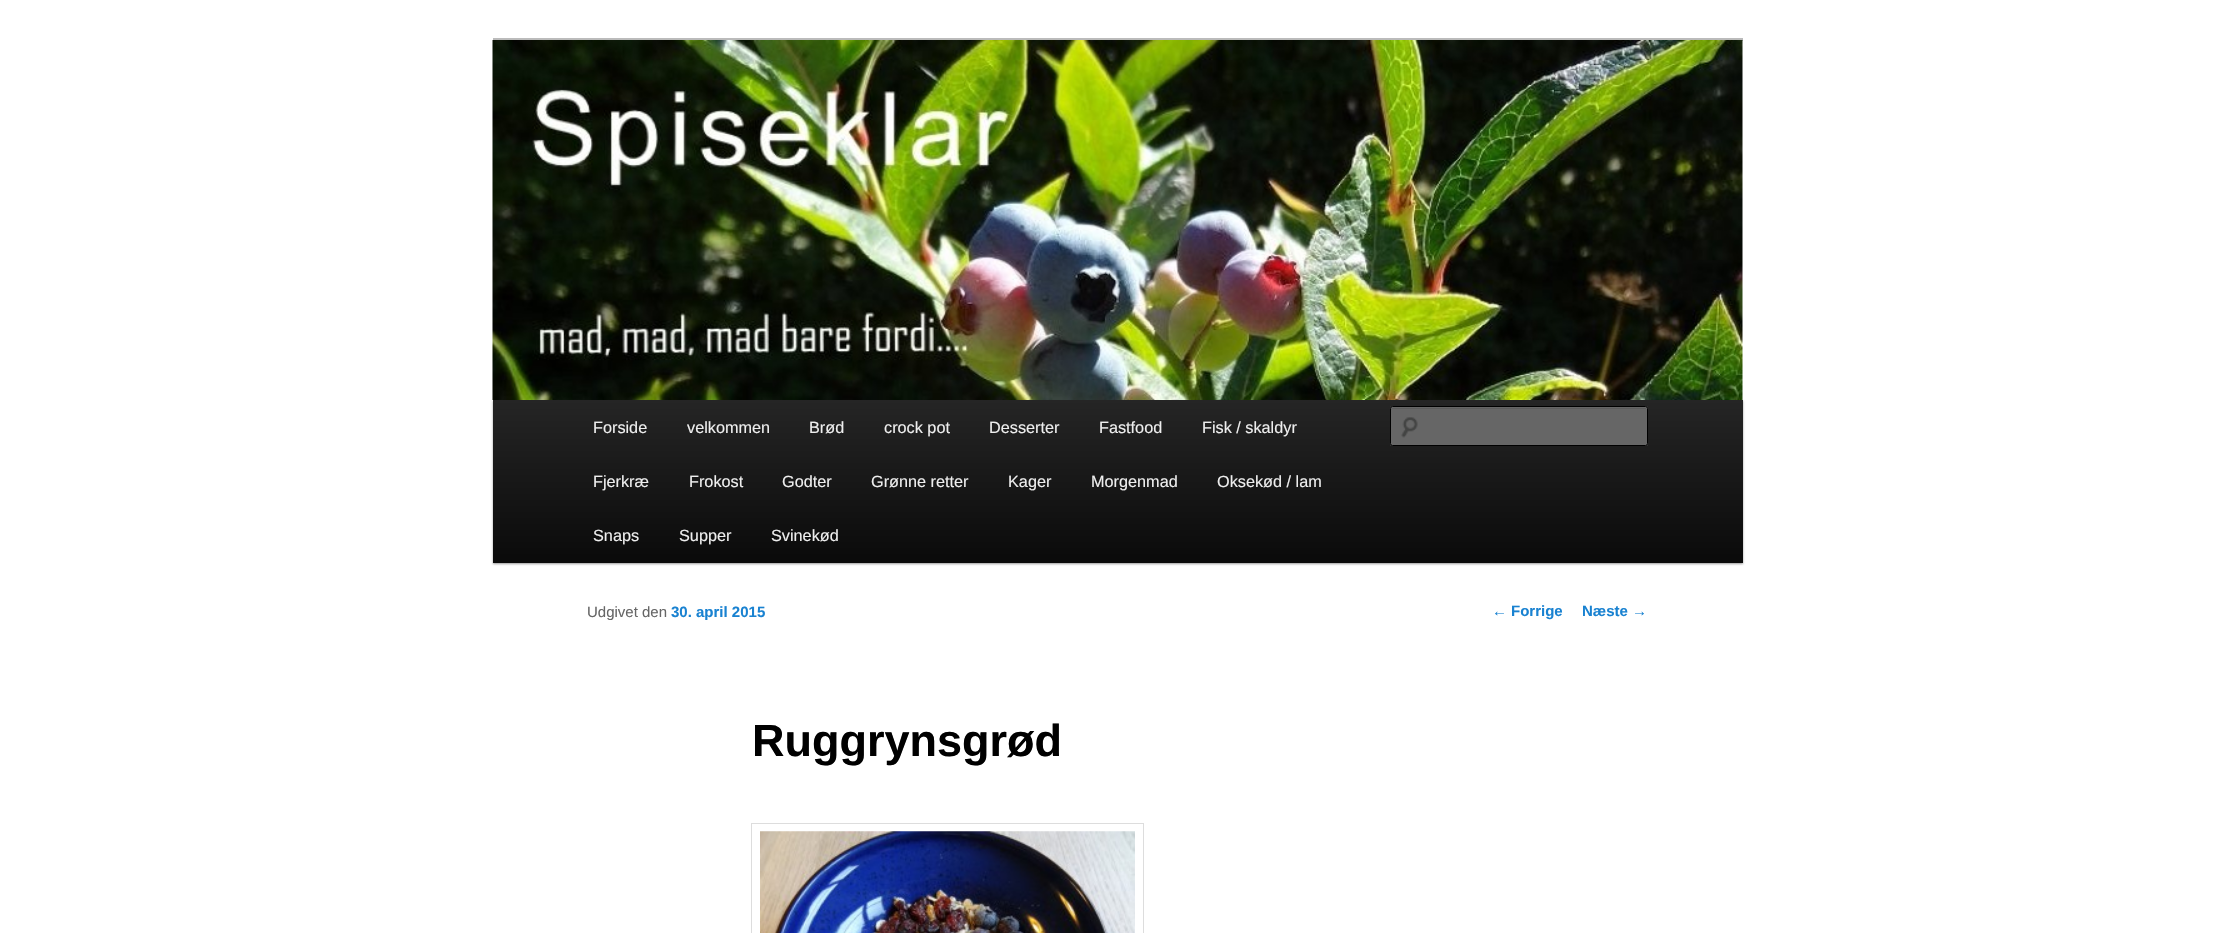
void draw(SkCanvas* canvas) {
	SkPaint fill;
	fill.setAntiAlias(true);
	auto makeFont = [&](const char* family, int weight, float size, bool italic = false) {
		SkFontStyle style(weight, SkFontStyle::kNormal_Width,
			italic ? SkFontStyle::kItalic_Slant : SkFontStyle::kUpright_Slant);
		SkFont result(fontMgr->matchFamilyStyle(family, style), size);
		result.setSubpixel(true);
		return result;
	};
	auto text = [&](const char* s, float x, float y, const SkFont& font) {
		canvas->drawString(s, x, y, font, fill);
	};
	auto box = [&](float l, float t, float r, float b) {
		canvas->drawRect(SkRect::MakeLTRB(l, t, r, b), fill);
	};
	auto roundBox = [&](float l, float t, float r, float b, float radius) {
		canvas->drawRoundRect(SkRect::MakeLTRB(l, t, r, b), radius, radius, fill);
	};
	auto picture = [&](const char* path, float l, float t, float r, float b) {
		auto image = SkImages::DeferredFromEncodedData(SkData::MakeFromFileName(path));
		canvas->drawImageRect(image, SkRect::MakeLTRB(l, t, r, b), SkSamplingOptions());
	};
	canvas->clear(0xFFFFFFFF);
	fill.setColor(0xFFBBBBBB);
	box(493, 38, 1743, 41);
	fill.setColor(0x66000000);
	fill.setMaskFilter(SkMaskFilter::MakeBlur(kNormal_SkBlurStyle, 1));
	canvas->drawRect(SkRect::MakeLTRB(493, 401, 1743, 564), fill);
	fill.setMaskFilter(nullptr);
	picture("image0.png", 492, 40, 1743, 400);
	{
		const SkColor colors[] = {0xFF252525, 0xFF0A0A0A};
		const float stops[] = {0, 1};
		const SkPoint ends[] = {{1118, 400}, {1118, 563}};
		fill.setShader(SkGradientShader::MakeLinear(ends, colors, stops, 2, SkTileMode::kClamp));
		fill.setAlpha(255);
	}
	box(493, 400, 1743, 563);
	fill.setShader(nullptr);
	fill.setColor(0xFF666666);
	roundBox(1390, 406, 1648, 446, 2.5f);
	picture("image1.png", 1401, 417, 1418, 438);
	fill.setColor(0xFF5C5C5C);
	canvas->drawPath(SkPathBuilder().moveTo(1392, 409).lineTo(1645, 409).cubicTo(1646, 409, 1646, 409, 1646, 410).lineTo(1646, 408).lineTo(1392, 408).cubicTo(1391, 408, 1391, 409, 1391, 410).close().detach(), fill);
	fill.setStyle(SkPaint::kStroke_Style);
	fill.setStrokeWidth(1);
	fill.setColor(0xFF000000);
	canvas->drawRoundRect(SkRect::MakeLTRB(1390.5f, 406.5f, 1647.5f, 445.5f), 2, 2, fill);
	fill.setColor(0xFFDDDDDD);
	canvas->drawRect(SkRect::MakeLTRB(751.5f, 823.5f, 1143.5f, 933.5f), fill);
	picture("image2.png", 760, 831, 1135, 933);
	auto font1 = makeFont("Liberation Sans", 400, 16.25f);
	fill.setStyle(SkPaint::kFill_Style);
	fill.setColor(0xFFEEEEEE);
	text("Forside", 593, 433, font1);
	text("velkommen", 687, 433, font1);
	text("Brød", 809, 433, font1);
	text("crock pot", 884, 433, font1);
	text("Desserter", 989, 433, font1);
	text("Fastfood", 1099, 433, font1);
	text("Fisk / skaldyr", 1202, 433, font1);
	text("Fjerkræ", 593, 487, font1);
	text("Frokost", 689, 487, font1);
	text("Godter", 782, 487, font1);
	text("Grønne retter", 871, 487, font1);
	text("Kager", 1008, 487, font1);
	text("Morgenmad", 1091, 487, font1);
	text("Oksekød / lam", 1217, 487, font1);
	text("Snaps", 593, 541, font1);
	text("Supper", 679, 541, font1);
	text("Svinekød", 771, 541, font1);
	auto font2 = makeFont("Liberation Sans", 400, 15);
	fill.setColor(0xFF666666);
	text("Udgivet den", 587, 617, font2);
	auto font3 = makeFont("Liberation Sans", 700, 15);
	fill.setColor(0xFF1982D1);
	text("30. april 2015", 671, 617, font3);
	auto font4 = makeFont("Liberation Sans", 700, 45);
	fill.setColor(0xFF000000);
	text("Ruggrynsgrød", 752, 756, font4);
	fill.setColor(0xFF1982D1);
	text("←", 1492, 616, font2);
	text("Forrige", 1511, 616, font3);
	text("Næste", 1582, 616, font3);
	text("→", 1632, 616, font2);
}
